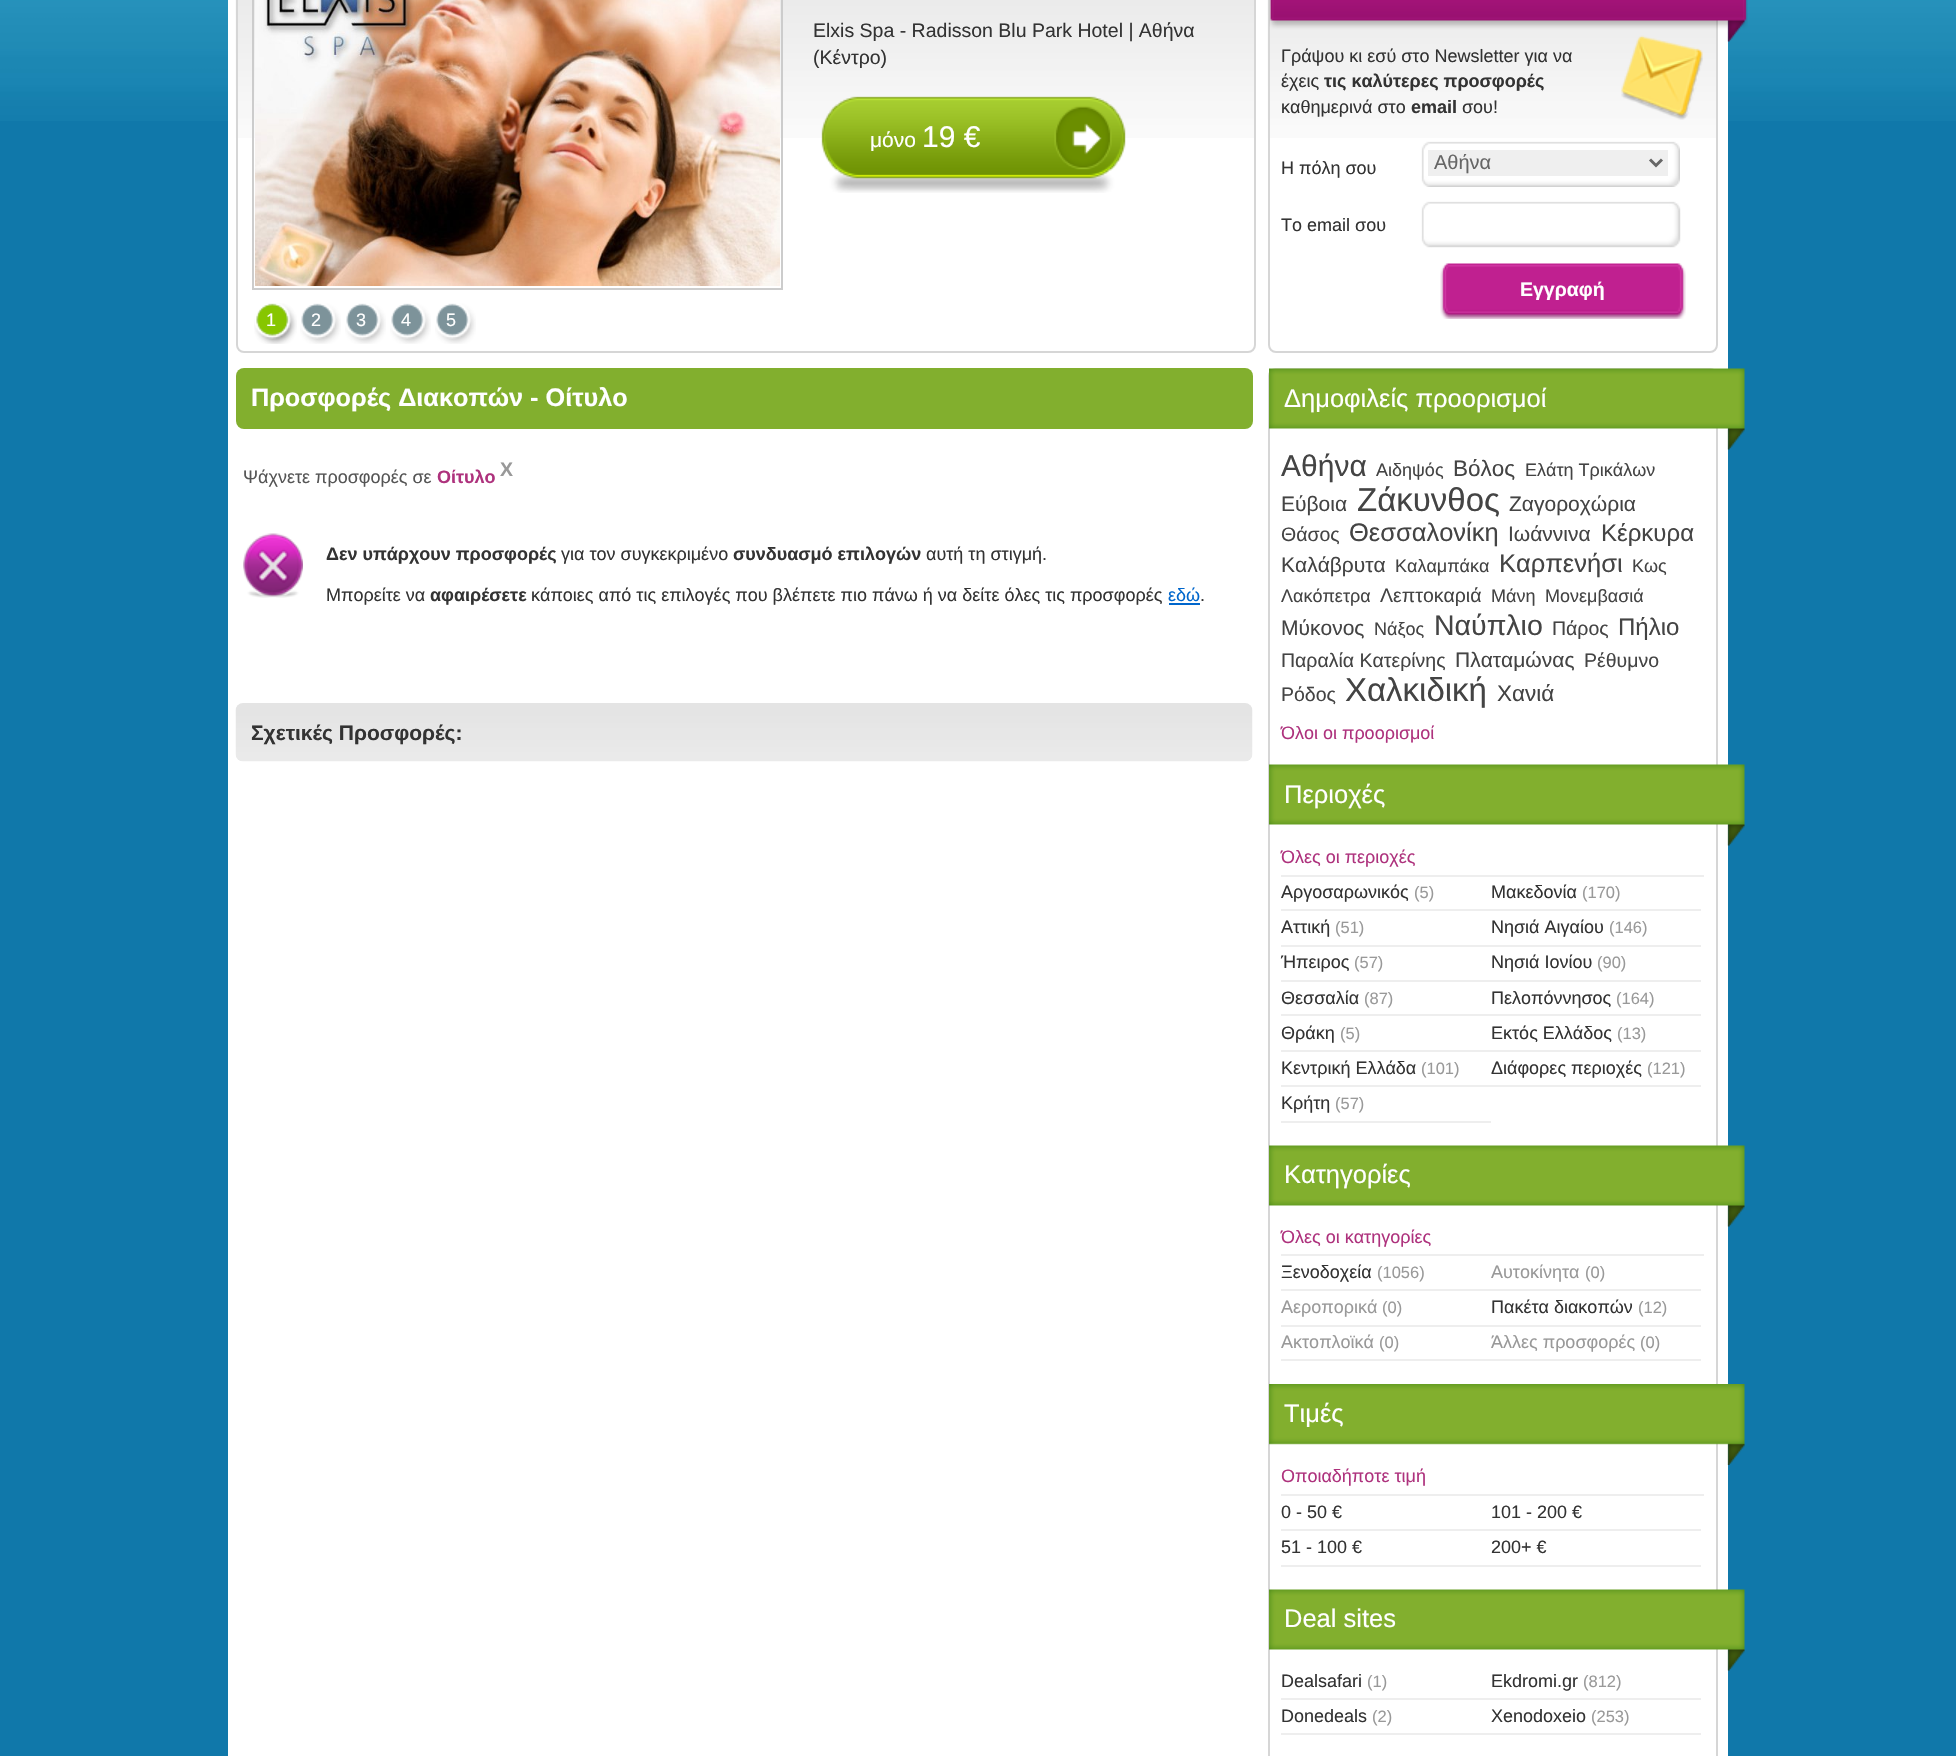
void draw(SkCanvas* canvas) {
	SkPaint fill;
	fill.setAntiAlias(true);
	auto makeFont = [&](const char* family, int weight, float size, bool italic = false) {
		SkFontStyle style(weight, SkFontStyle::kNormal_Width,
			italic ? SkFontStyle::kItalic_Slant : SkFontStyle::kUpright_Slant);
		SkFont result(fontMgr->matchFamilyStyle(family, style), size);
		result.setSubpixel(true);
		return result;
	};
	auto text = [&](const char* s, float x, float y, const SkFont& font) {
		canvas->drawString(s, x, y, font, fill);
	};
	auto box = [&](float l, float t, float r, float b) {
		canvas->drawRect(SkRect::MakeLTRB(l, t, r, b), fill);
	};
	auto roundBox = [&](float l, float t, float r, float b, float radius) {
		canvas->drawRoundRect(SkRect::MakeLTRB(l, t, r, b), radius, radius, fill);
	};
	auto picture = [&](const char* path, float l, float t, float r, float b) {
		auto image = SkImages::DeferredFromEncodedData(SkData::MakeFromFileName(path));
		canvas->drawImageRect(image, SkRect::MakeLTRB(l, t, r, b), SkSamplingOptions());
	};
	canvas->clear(0xFF1078AA);
	picture("image0.png", 0, 0, 1956, 121);
	fill.setColor(0xFFFFFFFF);
	box(228, 0, 1728, 1756);
	picture("image1.png", 235, 0, 1254, 138);
	fill.setStyle(SkPaint::kStroke_Style);
	fill.setStrokeWidth(2);
	fill.setColor(0xFFD6D6D6);
	canvas->drawRoundRect(SkRect::MakeLTRB(237, -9, 1255, 352), 7, 7, fill);
	fill.setColor(0xFFCCCCCC);
	canvas->drawRect(SkRect::MakeLTRB(253, -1, 782, 289), fill);
	picture("image2.png", 255, 0, 780, 286);
	picture("image3.png", 821, 96, 1126, 193);
	picture("image4.png", 254, 303, 297, 344);
	picture("image5.png", 300, 303, 341, 344);
	picture("image5.png", 345, 303, 386, 344);
	picture("image5.png", 390, 303, 431, 344);
	picture("image5.png", 435, 303, 476, 344);
	fill.setStyle(SkPaint::kFill_Style);
	fill.setColor(0xFF82AF2E);
	roundBox(236, 368, 1253, 429, 8);
	picture("image6.png", 243, 533, 303, 598);
	fill.setColor(0xFF0066CC);
	box(1169, 603, 1200, 605);
	picture("image7.png", 235, 703, 1253, 762);
	picture("image8.png", 1267, 0, 1716, 138);
	fill.setStyle(SkPaint::kStroke_Style);
	fill.setColor(0xFFD6D6D6);
	canvas->drawRoundRect(SkRect::MakeLTRB(1269, -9, 1717, 352), 7, 7, fill);
	picture("image10.png", 1621, 35, 1703, 120);
	picture("image9.png", 1269, 0, 1748, 42);
	picture("image11.png", 1421, 141, 1680, 187);
	fill.setStyle(SkPaint::kFill_Style);
	fill.setColor(0xFFEFEFEF);
	box(1428, 150, 1668, 176);
	fill.setStyle(SkPaint::kStroke_Style);
	fill.setStrokeWidth(3);
	fill.setColor(0xFF666666);
	canvas->drawPath(SkPathBuilder().moveTo(1650, 159.5f).lineTo(1656, 165.5f).lineTo(1662, 159.5f).detach(), fill);
	picture("image12.png", 1421, 201, 1681, 248);
	picture("image13.png", 1440, 263, 1686, 319);
	fill.setStrokeWidth(2);
	fill.setColor(0xFFD6D6D6);
	canvas->drawRoundRect(SkRect::MakeLTRB(1269, 369, 1717, 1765), 7, 7, fill);
	picture("image14.png", 1269, 368, 1745, 450);
	picture("image15.png", 1269, 764, 1745, 846);
	fill.setStyle(SkPaint::kFill_Style);
	fill.setColor(0xFFEEEEEE);
	box(1281, 875, 1704, 877);
	box(1281, 909, 1701, 911);
	box(1281, 945, 1701, 947);
	box(1281, 980, 1701, 982);
	box(1281, 1014, 1701, 1016);
	box(1281, 1050, 1701, 1052);
	box(1281, 1085, 1701, 1087);
	box(1281, 1121, 1491, 1123);
	picture("image15.png", 1269, 1145, 1745, 1227);
	box(1281, 1254, 1704, 1256);
	box(1281, 1289, 1701, 1291);
	box(1281, 1325, 1701, 1327);
	box(1281, 1359, 1701, 1361);
	picture("image16.png", 1269, 1384, 1745, 1465);
	box(1281, 1494, 1704, 1496);
	box(1281, 1529, 1701, 1531);
	box(1281, 1565, 1701, 1567);
	picture("image15.png", 1269, 1589, 1745, 1671);
	box(1281, 1698, 1701, 1700);
	box(1281, 1733, 1701, 1735);
	auto font1 = makeFont("Liberation Sans", 400, 19.5f);
	fill.setColor(0xFF333333);
	text("Elxis Spa - Radisson Blu Park Hotel | Αθήνα", 813, 37, font1);
	text("(Κέντρο)", 813, 64, font1);
	auto font2 = makeFont("Liberation Sans", 400, 21);
	fill.setColor(0xFFFFFFFF);
	text("μόνο", 870, 147, font2);
	auto font3 = makeFont("Liberation Sans", 400, 30);
	text("19 €", 922, 147, font3);
	auto font4 = makeFont("Liberation Sans", 400, 18);
	text("1", 266, 326, font4);
	text("2", 311, 326, font4);
	text("3", 356, 326, font4);
	text("4", 401, 326, font4);
	text("5", 446, 326, font4);
	auto font5 = makeFont("Liberation Sans", 700, 25.25f);
	text("Προσφορές Διακοπών - Οίτυλο", 251, 406, font5);
	fill.setColor(0xFF555555);
	text("Ψάχνετε προσφορές σε", 243, 483, font4);
	auto font6 = makeFont("Liberation Sans", 700, 18);
	fill.setColor(0xFFAE327D);
	text("Οίτυλο", 437, 483, font6);
	auto font7 = makeFont("Liberation Sans", 700, 19.5f);
	fill.setColor(0xFF999999);
	text("Χ", 500, 476, font7);
	fill.setColor(0xFF333333);
	text("Δεν υπάρχουν προσφορές", 326, 560, font6);
	text("για τον συγκεκριμένο", 561, 560, font4);
	text("συνδυασμό επιλογών", 733, 560, font6);
	text("αυτή τη στιγμή.", 926, 560, font4);
	text("Μπορείτε να", 326, 601, font4);
	text("αφαιρέσετε", 430, 601, font6);
	text("κάποιες από τις επιλογές που βλέπετε πιο πάνω ή να δείτε όλες τις προσφορές", 531, 601, font4);
	fill.setColor(0xFF0066CC);
	text("εδώ", 1168, 601, font4);
	fill.setColor(0xFF333333);
	text(".", 1200, 601, font4);
	auto font8 = makeFont("Liberation Sans", 700, 21);
	text("Σχετικές Προσφορές:", 251, 740, font8);
	text("Γράψου κι εσύ στο Newsletter για να", 1281, 62, font4);
	text("έχεις", 1281, 87, font4);
	text("τις καλύτερες προσφορές", 1324, 87, font6);
	text("καθημερινά στο", 1281, 113, font4);
	text("email", 1411, 113, font6);
	text("σου!", 1462, 113, font4);
	text("Η πόλη σου", 1281, 174, font4);
	auto font9 = makeFont("Liberation Sans", 400, 20);
	fill.setColor(0xFF666666);
	text("Αθήνα", 1434, 169, font9);
	fill.setColor(0xFF333333);
	text("Το email σου", 1281, 231, font4);
	fill.setColor(0xFFFFFFFF);
	text("Εγγραφή", 1520, 296, font7);
	auto font10 = makeFont("Liberation Sans", 400, 25.5f);
	text("Δημοφιλείς προορισμοί", 1284, 407, font10);
	fill.setColor(0xFF444444);
	text("Αθήνα", 1281, 476, font3);
	text("Αιδηψός", 1376, 476, font4);
	auto font11 = makeFont("Liberation Sans", 400, 22.5f);
	text("Βόλος", 1453, 476, font11);
	text("Ελάτη Τρικάλων", 1525, 476, font4);
	text("Εύβοια", 1281, 511, font2);
	auto font12 = makeFont("Liberation Sans", 400, 33);
	text("Ζάκυνθος", 1357, 511, font12);
	text("Ζαγοροχώρια", 1509, 511, font2);
	text("Θάσος", 1281, 541, font1);
	text("Θεσσαλονίκη", 1349, 541, font10);
	text("Ιωάννινα", 1508, 541, font2);
	auto font13 = makeFont("Liberation Sans", 400, 24);
	text("Κέρκυρα", 1601, 541, font13);
	text("Καλάβρυτα", 1281, 572, font2);
	text("Καλαμπάκα", 1395, 572, font4);
	text("Καρπενήσι", 1499, 572, font10);
	text("Κως", 1632, 572, font4);
	text("Λακόπετρα", 1281, 602, font4);
	text("Λεπτοκαριά", 1380, 602, font1);
	text("Μάνη", 1491, 602, font4);
	text("Μονεμβασιά", 1545, 602, font4);
	text("Μύκονος", 1281, 635, font2);
	text("Νάξος", 1374, 635, font4);
	auto font14 = makeFont("Liberation Sans", 400, 28.5f);
	text("Ναύπλιο", 1434, 635, font14);
	text("Πάρος", 1552, 635, font1);
	text("Πήλιο", 1618, 635, font13);
	text("Παραλία Κατερίνης", 1281, 667, font1);
	text("Πλαταμώνας", 1455, 667, font2);
	text("Ρέθυμνο", 1584, 667, font1);
	text("Ρόδος", 1281, 701, font1);
	text("Χαλκιδική", 1345, 701, font12);
	text("Χανιά", 1497, 701, font11);
	fill.setColor(0xFFAE327D);
	text("Όλοι οι προορισμοί", 1281, 739, font4);
	fill.setColor(0xFFFFFFFF);
	text("Περιοχές", 1284, 803, font10);
	fill.setColor(0xFFAE327D);
	text("Όλες οι περιοχές", 1281, 863, font4);
	fill.setColor(0xFF333333);
	text("Αργοσαρωνικός", 1281, 898, font4);
	auto font15 = makeFont("Liberation Sans", 400, 16.5f);
	fill.setColor(0xFF999999);
	text("(5)", 1414, 898, font15);
	fill.setColor(0xFF333333);
	text("Αττική", 1281, 933, font4);
	fill.setColor(0xFF999999);
	text("(51)", 1335, 933, font15);
	fill.setColor(0xFF333333);
	text("Ήπειρος", 1281, 968, font4);
	fill.setColor(0xFF999999);
	text("(57)", 1354, 968, font15);
	fill.setColor(0xFF333333);
	text("Θεσσαλία", 1281, 1004, font4);
	fill.setColor(0xFF999999);
	text("(87)", 1364, 1004, font15);
	fill.setColor(0xFF333333);
	text("Θράκη", 1281, 1039, font4);
	fill.setColor(0xFF999999);
	text("(5)", 1340, 1039, font15);
	fill.setColor(0xFF333333);
	text("Κεντρική Ελλάδα", 1281, 1074, font4);
	fill.setColor(0xFF999999);
	text("(101)", 1421, 1074, font15);
	fill.setColor(0xFF333333);
	text("Κρήτη", 1281, 1109, font4);
	fill.setColor(0xFF999999);
	text("(57)", 1335, 1109, font15);
	fill.setColor(0xFF333333);
	text("Μακεδονία", 1491, 898, font4);
	fill.setColor(0xFF999999);
	text("(170)", 1582, 898, font15);
	fill.setColor(0xFF333333);
	text("Νησιά Αιγαίου", 1491, 933, font4);
	fill.setColor(0xFF999999);
	text("(146)", 1609, 933, font15);
	fill.setColor(0xFF333333);
	text("Νησιά Ιονίου", 1491, 968, font4);
	fill.setColor(0xFF999999);
	text("(90)", 1597, 968, font15);
	fill.setColor(0xFF333333);
	text("Πελοπόννησος", 1491, 1004, font4);
	fill.setColor(0xFF999999);
	text("(164)", 1616, 1004, font15);
	fill.setColor(0xFF333333);
	text("Εκτός Ελλάδος", 1491, 1039, font4);
	fill.setColor(0xFF999999);
	text("(13)", 1617, 1039, font15);
	fill.setColor(0xFF333333);
	text("Διάφορες περιοχές", 1491, 1074, font4);
	fill.setColor(0xFF999999);
	text("(121)", 1647, 1074, font15);
	fill.setColor(0xFFFFFFFF);
	text("Κατηγορίες", 1284, 1183, font10);
	fill.setColor(0xFFAE327D);
	text("Όλες οι κατηγορίες", 1281, 1243, font4);
	fill.setColor(0xFF333333);
	text("Ξενοδοχεία", 1281, 1278, font4);
	fill.setColor(0xFF999999);
	text("(1056)", 1377, 1278, font15);
	text("Αεροπορικά", 1281, 1313, font4);
	text("(0)", 1382, 1313, font15);
	text("Ακτοπλοϊκά", 1281, 1348, font4);
	text("(0)", 1379, 1348, font15);
	text("Αυτοκίνητα", 1491, 1278, font4);
	text("(0)", 1585, 1278, font15);
	fill.setColor(0xFF333333);
	text("Πακέτα διακοπών", 1491, 1313, font4);
	fill.setColor(0xFF999999);
	text("(12)", 1638, 1313, font15);
	text("Άλλες προσφορές", 1491, 1348, font4);
	text("(0)", 1640, 1348, font15);
	fill.setColor(0xFFFFFFFF);
	text("Τιμές", 1284, 1422, font10);
	fill.setColor(0xFFAE327D);
	text("Οποιαδήποτε τιμή", 1281, 1482, font4);
	fill.setColor(0xFF333333);
	text("0 - 50 €", 1281, 1518, font4);
	text("51 - 100 €", 1281, 1553, font4);
	text("101 - 200 €", 1491, 1518, font4);
	text("200+ €", 1491, 1553, font4);
	fill.setColor(0xFFFFFFFF);
	text("Deal sites", 1284, 1627, font10);
	fill.setColor(0xFF333333);
	text("Dealsafari", 1281, 1687, font4);
	fill.setColor(0xFF999999);
	text("(1)", 1367, 1687, font15);
	fill.setColor(0xFF333333);
	text("Donedeals", 1281, 1722, font4);
	fill.setColor(0xFF999999);
	text("(2)", 1372, 1722, font15);
	fill.setColor(0xFF333333);
	text("Ekdromi.gr", 1491, 1687, font4);
	fill.setColor(0xFF999999);
	text("(812)", 1583, 1687, font15);
	fill.setColor(0xFF333333);
	text("Xenodoxeio", 1491, 1722, font4);
	fill.setColor(0xFF999999);
	text("(253)", 1591, 1722, font15);
}
